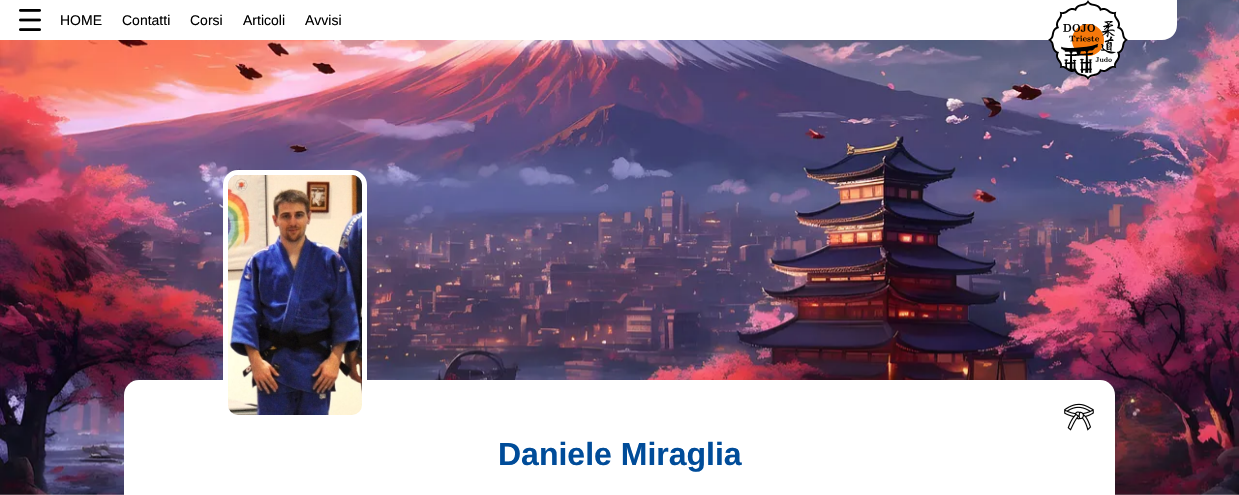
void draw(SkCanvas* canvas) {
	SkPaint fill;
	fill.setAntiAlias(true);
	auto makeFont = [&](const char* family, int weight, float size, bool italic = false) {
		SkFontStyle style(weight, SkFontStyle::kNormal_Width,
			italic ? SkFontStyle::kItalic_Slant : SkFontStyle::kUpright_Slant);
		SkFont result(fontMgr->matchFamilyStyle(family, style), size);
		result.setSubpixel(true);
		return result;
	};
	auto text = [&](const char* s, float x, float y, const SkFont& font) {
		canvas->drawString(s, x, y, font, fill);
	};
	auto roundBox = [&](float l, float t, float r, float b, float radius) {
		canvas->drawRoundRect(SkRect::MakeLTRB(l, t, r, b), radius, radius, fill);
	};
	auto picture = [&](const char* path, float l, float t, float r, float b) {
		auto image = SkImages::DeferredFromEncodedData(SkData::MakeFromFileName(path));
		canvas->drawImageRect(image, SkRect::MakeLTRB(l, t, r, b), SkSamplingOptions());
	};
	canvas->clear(0xFFFFFFFF);
	picture("image0.png", 0, 0, 1239, 495);
	fill.setColor(0xFFFFFFFF);
	canvas->drawPath(SkPathBuilder().moveTo(0, 0).lineTo(1177, 0).lineTo(1177, 25).cubicTo(1177, 33.5f, 1170.5f, 40, 1162, 40).lineTo(0, 40).close().detach(), fill);
	picture("image1.png", 19, 9, 41, 31);
	picture("image2.png", 1048, 0, 1128, 80);
	roundBox(124, 380, 1115, 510, 15);
	fill.setStyle(SkPaint::kStroke_Style);
	fill.setStrokeWidth(5);
	canvas->drawRoundRect(SkRect::MakeLTRB(225.5f, 172.5f, 364.5f, 417.5f), 12.5f, 12.5f, fill);
	picture("image3.png", 228, 175, 362, 415);
	picture("image4.png", 1064, 403, 1094, 431);
	auto font1 = makeFont("Liberation Sans", 400, 14);
	fill.setStyle(SkPaint::kFill_Style);
	fill.setColor(0xFF000000);
	text("HOME", 60, 25, font1);
	text("Contatti", 122, 25, font1);
	text("Corsi", 190, 25, font1);
	text("Articoli", 243, 25, font1);
	text("Avvisi", 305, 25, font1);
	auto font2 = makeFont("Liberation Sans", 700, 32);
	fill.setColor(0xFF004C99);
	text("Daniele Miraglia", 498, 465, font2);
}
